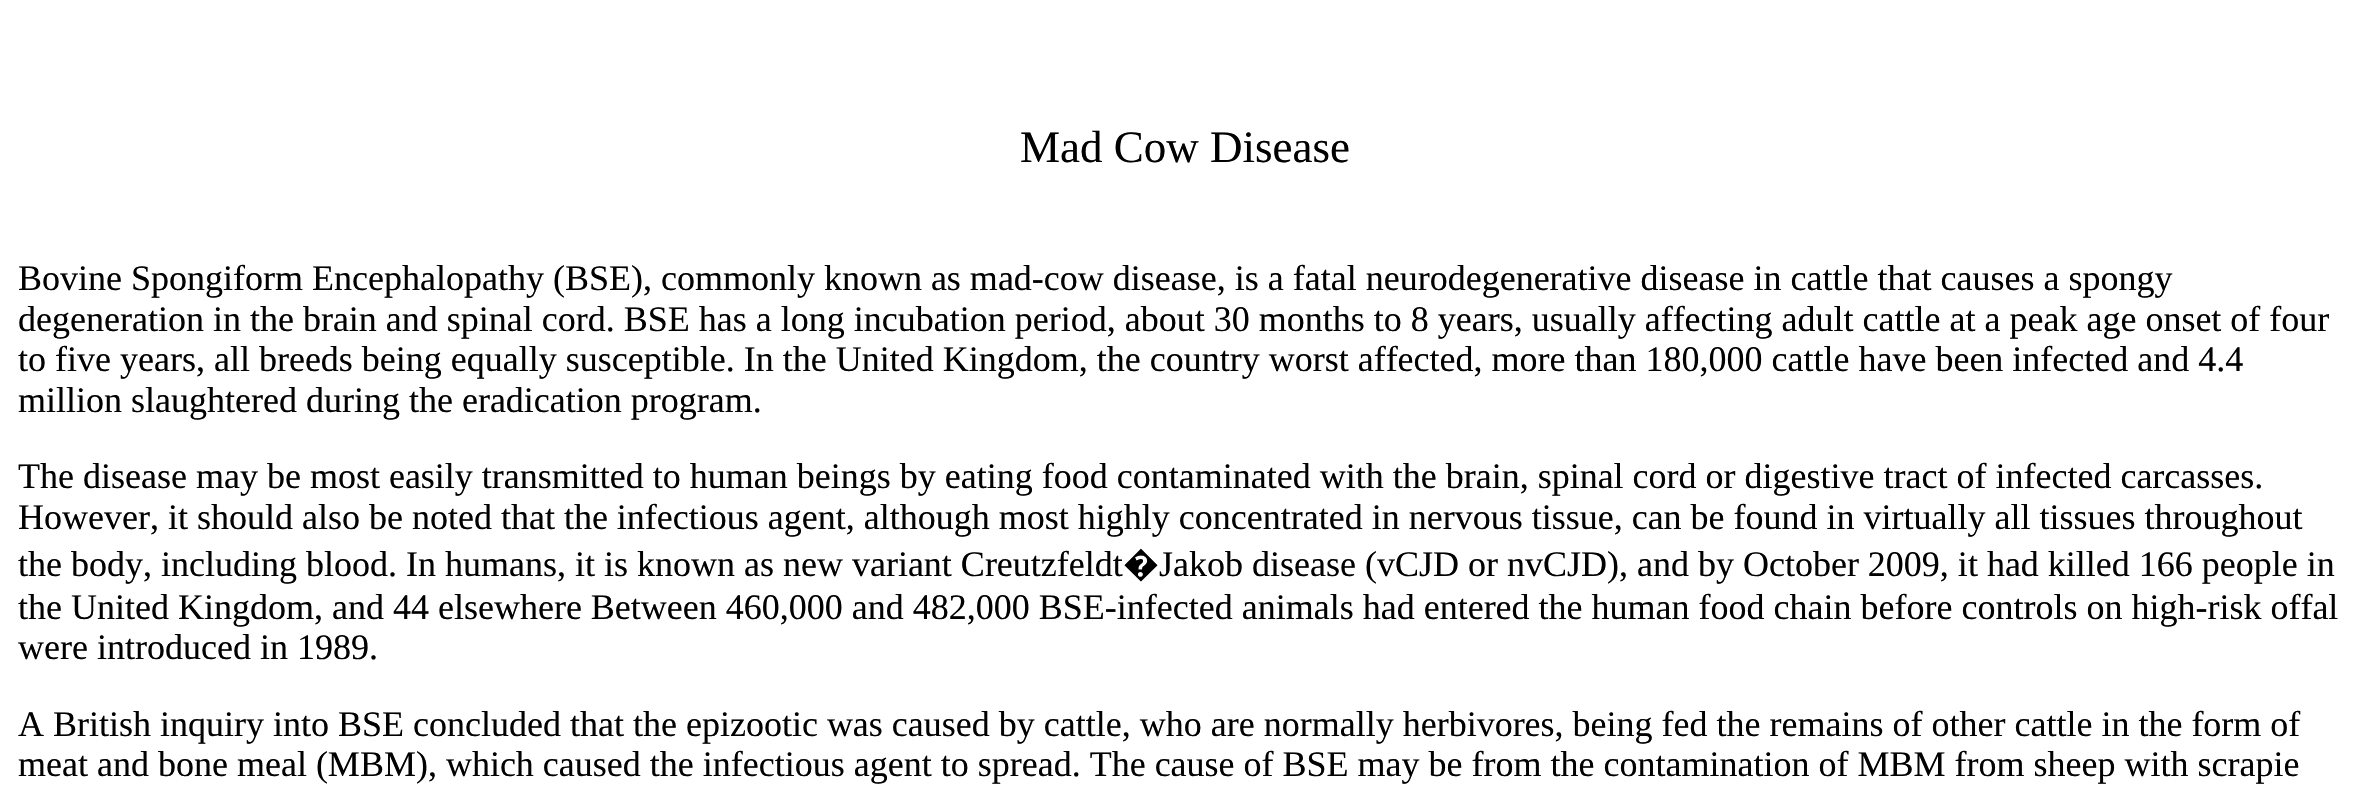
void draw(SkCanvas* canvas) {
	SkPaint fill;
	fill.setAntiAlias(true);
	auto makeFont = [&](const char* family, int weight, float size, bool italic = false) {
		SkFontStyle style(weight, SkFontStyle::kNormal_Width,
			italic ? SkFontStyle::kItalic_Slant : SkFontStyle::kUpright_Slant);
		SkFont result(fontMgr->matchFamilyStyle(family, style), size);
		result.setSubpixel(true);
		return result;
	};
	auto text = [&](const char* s, float x, float y, const SkFont& font) {
		canvas->drawString(s, x, y, font, fill);
	};
	canvas->clear(0xFFFFFFFF);
	auto font1 = makeFont("Liberation Serif", 400, 45);
	fill.setColor(0xFF000000);
	text("Mad Cow Disease", 1020, 162, font1);
	auto font2 = makeFont("Liberation Serif", 400, 36);
	text("Bovine Spongiform Encephalopathy (BSE), commonly known as mad-cow disease, is a fatal neurodegenerative disease in cattle that causes a spongy", 18, 290, font2);
	text("degeneration in the brain and spinal cord. BSE has a long incubation period, about 30 months to 8 years, usually affecting adult cattle at a peak age onset of four", 18, 331, font2);
	text("to five years, all breeds being equally susceptible. In the United Kingdom, the country worst affected, more than 180,000 cattle have been infected and 4.4", 18, 371, font2);
	text("million slaughtered during the eradication program.", 18, 412, font2);
	text("The disease may be most easily transmitted to human beings by eating food contaminated with the brain, spinal cord or digestive tract of infected carcasses.", 18, 488, font2);
	text("However, it should also be noted that the infectious agent, although most highly concentrated in nervous tissue, can be found in virtually all tissues throughout", 18, 529, font2);
	text("the body, including blood. In humans, it is known as new variant Creutzfeldt", 18, 576, font2);
	auto font3 = makeFont("Noto Sans", 400, 36);
	text("�", 1123, 576, font3);
	text("Jakob disease (vCJD or nvCJD), and by October 2009, it had killed 166 people in", 1159, 576, font2);
	text("the United Kingdom, and 44 elsewhere Between 460,000 and 482,000 BSE-infected animals had entered the human food chain before controls on high-risk offal", 18, 619, font2);
	text("were introduced in 1989.", 18, 659, font2);
	text("A British inquiry into BSE concluded that the epizootic was caused by cattle, who are normally herbivores, being fed the remains of other cattle in the form of", 18, 736, font2);
	text("meat and bone meal (MBM), which caused the infectious agent to spread. The cause of BSE may be from the contamination of MBM from sheep with scrapie", 18, 776, font2);
}
